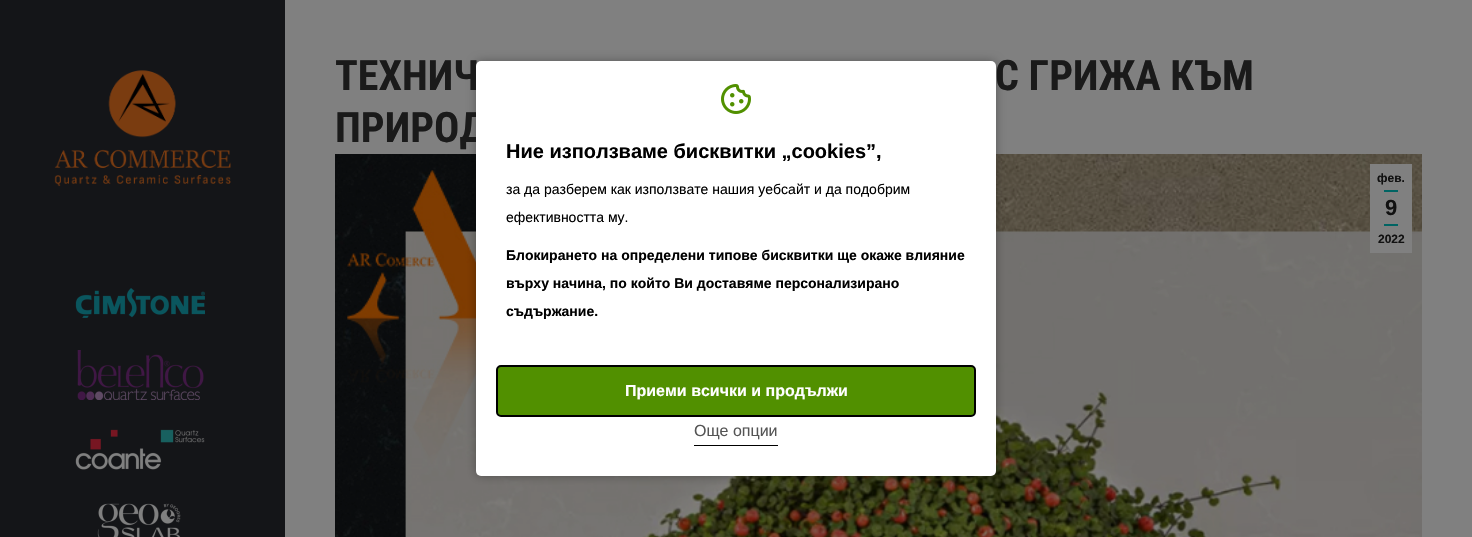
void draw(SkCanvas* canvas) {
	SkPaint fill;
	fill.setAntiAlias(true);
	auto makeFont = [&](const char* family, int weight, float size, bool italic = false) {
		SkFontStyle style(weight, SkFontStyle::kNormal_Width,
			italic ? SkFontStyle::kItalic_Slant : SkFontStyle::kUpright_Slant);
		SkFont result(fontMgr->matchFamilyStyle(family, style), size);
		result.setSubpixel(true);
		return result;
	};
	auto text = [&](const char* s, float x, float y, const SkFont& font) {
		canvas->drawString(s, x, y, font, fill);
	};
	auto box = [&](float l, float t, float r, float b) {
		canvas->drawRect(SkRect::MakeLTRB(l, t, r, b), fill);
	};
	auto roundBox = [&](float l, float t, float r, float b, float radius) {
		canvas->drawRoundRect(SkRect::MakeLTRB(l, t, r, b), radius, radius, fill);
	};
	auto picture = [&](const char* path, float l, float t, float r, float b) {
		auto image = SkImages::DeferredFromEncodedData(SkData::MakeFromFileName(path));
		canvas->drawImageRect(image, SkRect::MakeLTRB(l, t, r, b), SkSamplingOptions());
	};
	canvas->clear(0xFF808080);
	fill.setColor(0xFF141518);
	box(0, 0, 285, 537);
	picture("image0.png", 54, 70, 231, 187);
	picture("image1.png", 75, 288, 205, 318);
	picture("image2.png", 77, 350, 204, 400);
	picture("image3.png", 75, 429, 205, 470);
	picture("image4.png", 97, 503, 181, 537);
	picture("image5.png", 335, 154, 1422, 537);
	fill.setColor(0xFF808080);
	box(1370, 164, 1412, 253);
	fill.setColor(0xFF006463);
	box(1384, 190, 1398, 192);
	box(1384, 224, 1398, 226);
	fill.setColor(0x4D000000);
	fill.setMaskFilter(SkMaskFilter::MakeBlur(kNormal_SkBlurStyle, 5));
	canvas->drawRoundRect(SkRect::MakeLTRB(476, 61, 996, 476), 5, 5, fill);
	fill.setMaskFilter(nullptr);
	auto font1 = makeFont("Roboto Condensed", 700, 42);
	fill.setColor(0xFF1A1A1A);
	text("ТЕХНИЧ", 335, 90, font1);
	text("С ГРИЖА КЪМ", 995, 90, font1);
	text("ПРИРОД", 335, 142, font1);
	auto font2 = makeFont("Liberation Sans", 700, 12);
	fill.setColor(0xFF111111);
	text("фев.", 1377, 182, font2);
	auto font3 = makeFont("Liberation Sans", 700, 22);
	text("9", 1385, 215, font3);
	text("2022", 1378, 243, font2);
	fill.setColor(0xFFFFFFFF);
	roundBox(476, 61, 996, 476, 5);
	picture("image6.png", 721, 84, 751, 114);
	auto font4 = makeFont("Liberation Sans", 700, 20);
	fill.setColor(0xFF000000);
	text("Ние използваме бисквитки „cookies”,", 506, 158, font4);
	auto font5 = makeFont("Liberation Sans", 400, 14);
	text("за да разберем как използвате нашия уебсайт и да подобрим", 506, 194, font5);
	text("ефективността му.", 506, 222, font5);
	auto font6 = makeFont("Liberation Sans", 700, 14);
	text("Блокирането на определени типове бисквитки ще окаже влияние", 506, 260, font6);
	text("върху начина, по който Ви доставяме персонализирано", 506, 288, font6);
	text("съдържание.", 506, 316, font6);
	fill.setColor(0xFF519000);
	canvas->drawRoundRect(SkRect::MakeLTRB(497, 366, 975, 416), 4, 4, fill);
	fill.setStyle(SkPaint::kStroke_Style);
	fill.setStrokeWidth(2);
	fill.setColor(0xFF000000);
	canvas->drawRoundRect(SkRect::MakeLTRB(497, 366, 975, 416), 4, 4, fill);
	auto font7 = makeFont("Liberation Sans", 700, 16);
	fill.setStyle(SkPaint::kFill_Style);
	fill.setColor(0xFFFFFFFF);
	text("Приеми всички и продължи", 625, 396, font7);
	fill.setColor(0xFF000000);
	box(694, 445, 778, 446);
	auto font8 = makeFont("Liberation Sans", 400, 16);
	fill.setColor(0xFF555555);
	text("Още опции", 694, 436, font8);
}
